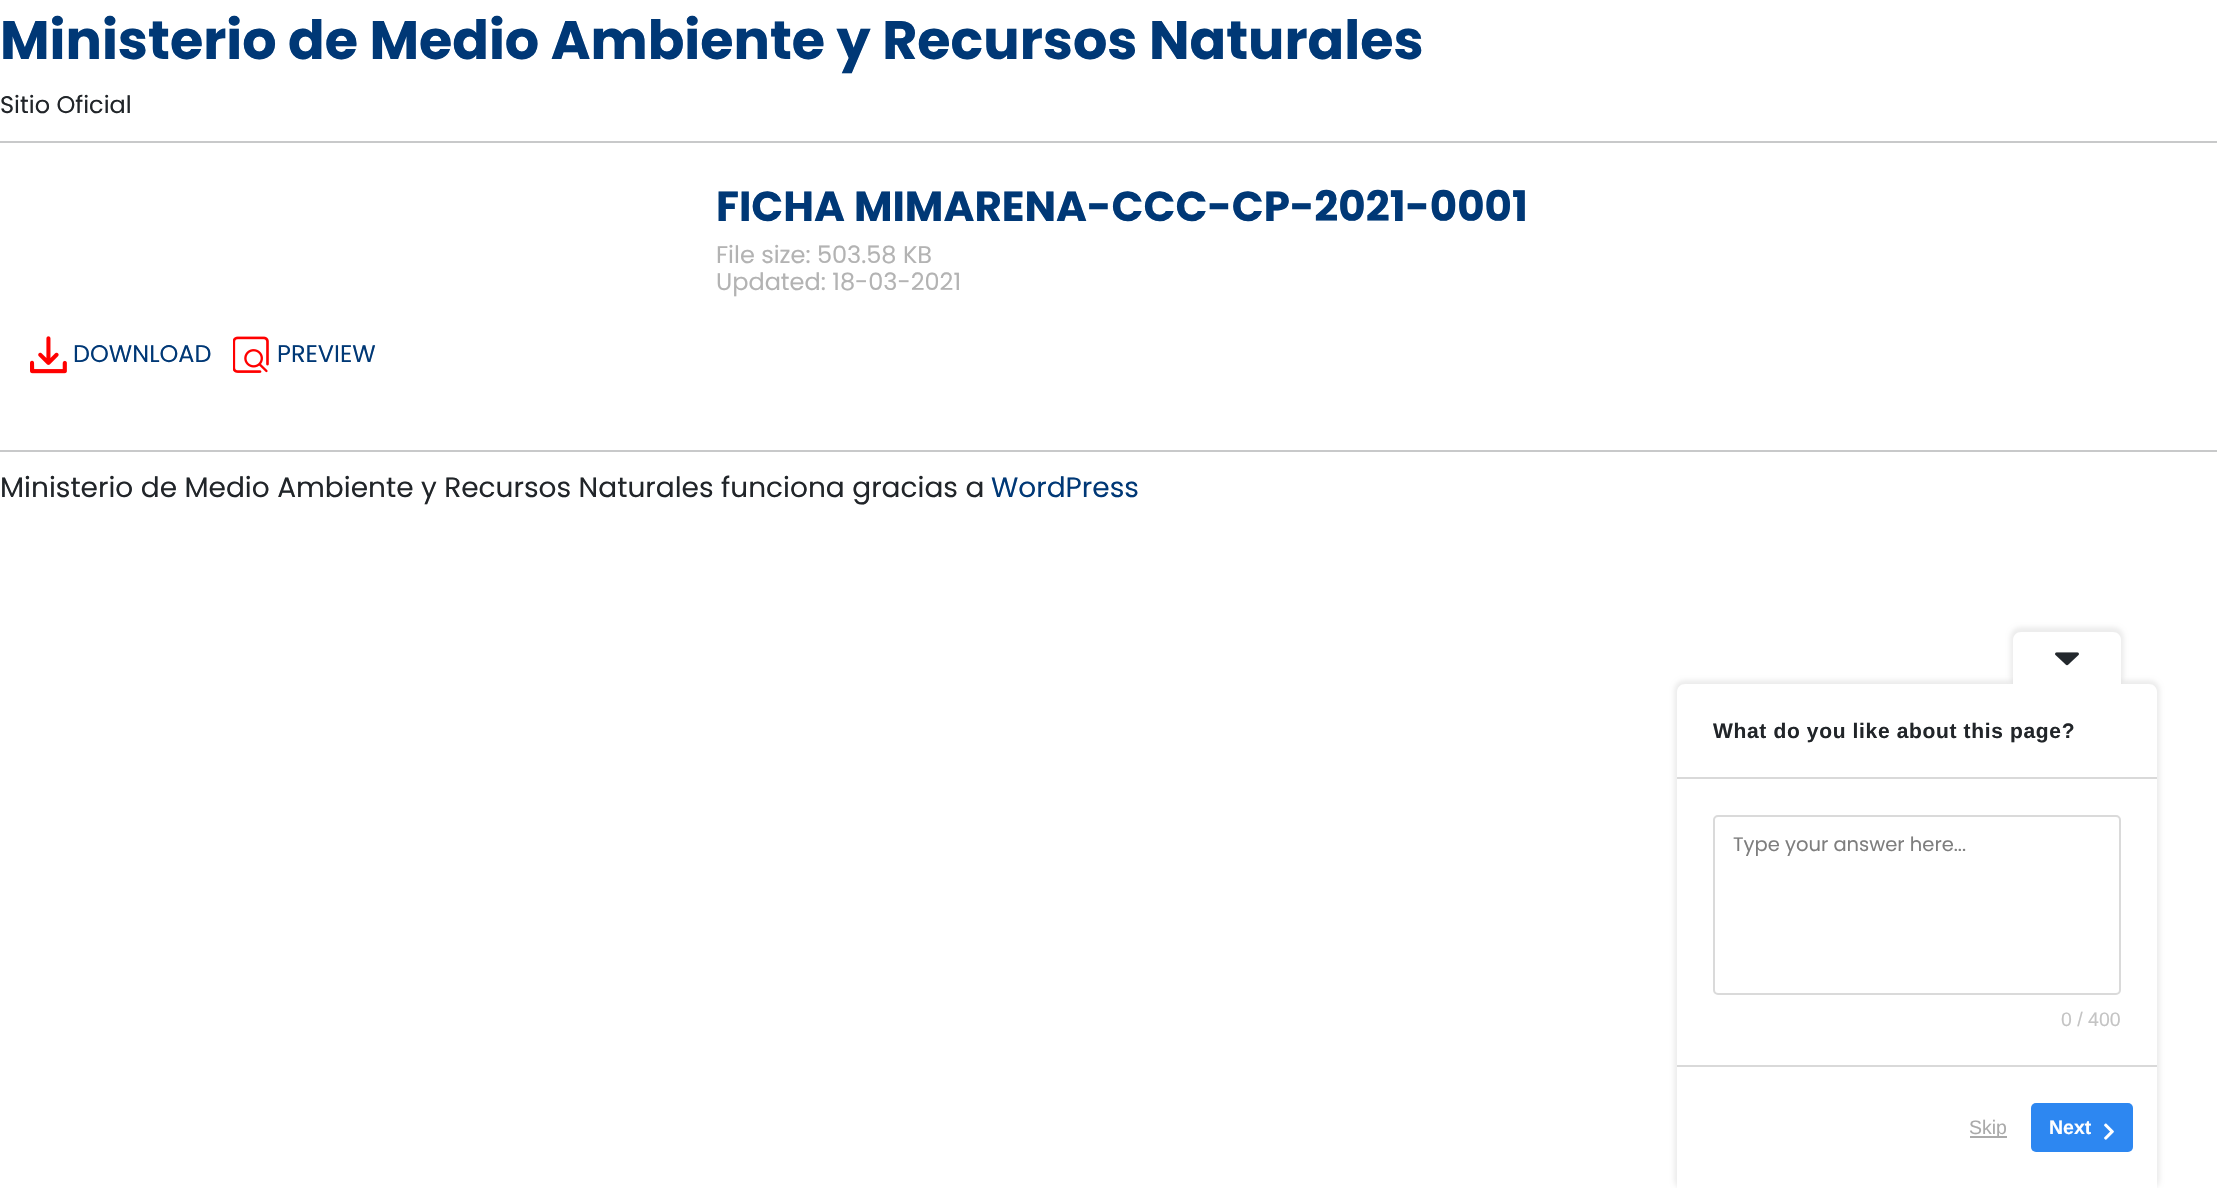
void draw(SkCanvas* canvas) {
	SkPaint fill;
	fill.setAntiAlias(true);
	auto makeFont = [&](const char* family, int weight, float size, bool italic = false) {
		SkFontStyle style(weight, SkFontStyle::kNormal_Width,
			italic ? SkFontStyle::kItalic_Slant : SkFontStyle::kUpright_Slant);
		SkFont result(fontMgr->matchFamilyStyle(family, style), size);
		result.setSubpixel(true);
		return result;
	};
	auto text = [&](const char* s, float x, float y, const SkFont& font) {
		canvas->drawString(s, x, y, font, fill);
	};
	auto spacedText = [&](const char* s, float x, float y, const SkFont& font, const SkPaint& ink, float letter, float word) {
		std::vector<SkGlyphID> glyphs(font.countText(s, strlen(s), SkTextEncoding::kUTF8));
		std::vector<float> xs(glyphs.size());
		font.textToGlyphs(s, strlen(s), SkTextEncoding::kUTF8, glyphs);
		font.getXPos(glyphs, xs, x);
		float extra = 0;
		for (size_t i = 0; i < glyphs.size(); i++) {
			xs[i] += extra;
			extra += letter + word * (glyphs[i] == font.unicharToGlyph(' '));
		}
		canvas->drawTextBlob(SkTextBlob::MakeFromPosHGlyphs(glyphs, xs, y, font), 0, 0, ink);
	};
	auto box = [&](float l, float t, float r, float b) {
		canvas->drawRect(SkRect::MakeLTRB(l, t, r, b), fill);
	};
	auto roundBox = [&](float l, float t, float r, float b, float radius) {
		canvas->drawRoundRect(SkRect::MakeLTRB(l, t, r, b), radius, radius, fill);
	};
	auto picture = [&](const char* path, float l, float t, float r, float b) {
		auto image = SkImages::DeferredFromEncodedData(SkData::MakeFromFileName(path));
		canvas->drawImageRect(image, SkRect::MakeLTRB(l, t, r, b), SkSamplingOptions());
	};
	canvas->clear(0xFFFFFFFF);
	fill.setColor(0xFFC8C9CA);
	box(0, 141, 2217, 143);
	picture("image0.png", 30, 336, 67, 374);
	picture("image1.png", 233, 336, 269, 373);
	box(0, 450, 2217, 452);
	fill.setColor(0x12000000);
	fill.setMaskFilter(SkMaskFilter::MakeBlur(kNormal_SkBlurStyle, 2));
	canvas->drawRoundRect(SkRect::MakeLTRB(1674, 680, 2160, 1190), 11, 11, fill);
	fill.setMaskFilter(nullptr);
	fill.setColor(0xFFFFFFFF);
	canvas->drawPath(SkPathBuilder().moveTo(1685, 684).lineTo(2149, 684).cubicTo(2153.5f, 684, 2157, 687.5f, 2157, 692).lineTo(2157, 1188).lineTo(1677, 1188).lineTo(1677, 692).cubicTo(1677, 687.5f, 1680.5f, 684, 1685, 684).close().detach(), fill);
	canvas->save();
	canvas->clipPath(SkPathBuilder().moveTo(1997, 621).lineTo(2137, 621).lineTo(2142.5f, 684).lineTo(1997, 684).close().detach(), true);
	fill.setColor(0x12000000);
	fill.setMaskFilter(SkMaskFilter::MakeBlur(kNormal_SkBlurStyle, 2));
	canvas->drawRoundRect(SkRect::MakeLTRB(2010, 627, 2124, 686), 11, 11, fill);
	fill.setMaskFilter(nullptr);
	canvas->restore();
	fill.setColor(0xFFFFFFFF);
	canvas->drawPath(SkPathBuilder().moveTo(2021, 632).lineTo(2113, 632).cubicTo(2117.5f, 632, 2121, 635.5f, 2121, 640).lineTo(2121, 684).lineTo(2013, 684).lineTo(2013, 640).cubicTo(2013, 635.5f, 2016.5f, 632, 2021, 632).close().detach(), fill);
	picture("image2.png", 2055, 652, 2079, 666);
	fill.setColor(0xFFD9D9D9);
	box(1677, 777, 2157, 779);
	box(1677, 1065, 2157, 1067);
	fill.setStyle(SkPaint::kStroke_Style);
	fill.setStrokeWidth(2);
	fill.setColor(0xFFDADADA);
	canvas->drawRoundRect(SkRect::MakeLTRB(1714, 816, 2120, 994), 4, 4, fill);
	fill.setStyle(SkPaint::kFill_Style);
	fill.setColor(0xFFAAAAAA);
	box(1970, 1136, 2007, 1138);
	fill.setColor(0xFF2D87F1);
	roundBox(2031, 1103, 2133, 1152, 5);
	picture("image3.png", 2104, 1123, 2114, 1140);
	auto font1 = makeFont("Poppins", 700, 54);
	fill.setColor(0xFF003876);
	text("Ministerio de Medio Ambiente y Recursos Naturales", 0, 59, font1);
	auto font2 = makeFont("Poppins", 400, 24);
	fill.setColor(0xFF212529);
	text("Sitio Oficial", 0, 113, font2);
	auto font3 = makeFont("Poppins", 700, 42);
	fill.setColor(0xFF003876);
	text("FICHA MIMARENA-CCC-CP-2021-0001", 716, 221, font3);
	fill.setColor(0xFFB3B3B3);
	text("File size: 503.58 KB", 716, 263, font2);
	text("Updated: 18-03-2021", 716, 290, font2);
	fill.setColor(0xFF003876);
	text("DOWNLOAD", 73, 362, font2);
	text("PREVIEW", 277, 362, font2);
	auto font4 = makeFont("Poppins", 400, 28);
	fill.setColor(0xFF212529);
	text("Ministerio de Medio Ambiente y Recursos Naturales funciona gracias a", 0, 497, font4);
	fill.setColor(0xFF003876);
	text("WordPress", 991, 497, font4);
	auto font5 = makeFont("Liberation Sans", 700, 21);
	fill.setColor(0xFF212529);
	spacedText("What do you like about this page?", 1713, 738, font5, fill, 0.65f, 0);
	auto font6 = makeFont("Poppins", 400, 19.5f);
	fill.setColor(0xFF7E7E7E);
	text("Type your answer here...", 1733, 851, font6);
	auto font7 = makeFont("Liberation Sans", 400, 19.5f);
	fill.setColor(0xFFC4C4C4);
	text("0 / 400", 2061, 1026, font7);
	fill.setColor(0xFFAAAAAA);
	text("Skip", 1969, 1134, font7);
	auto font8 = makeFont("Liberation Sans", 700, 19.5f);
	fill.setColor(0xFFFFFFFF);
	text("Next", 2049, 1134, font8);
}
